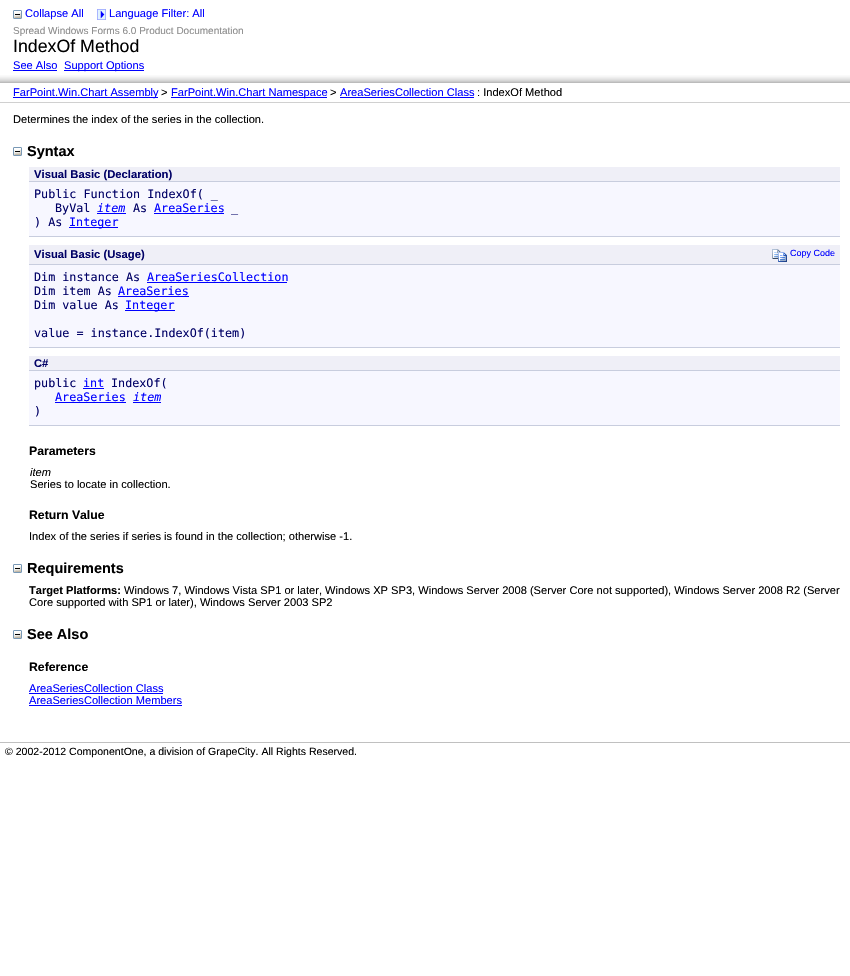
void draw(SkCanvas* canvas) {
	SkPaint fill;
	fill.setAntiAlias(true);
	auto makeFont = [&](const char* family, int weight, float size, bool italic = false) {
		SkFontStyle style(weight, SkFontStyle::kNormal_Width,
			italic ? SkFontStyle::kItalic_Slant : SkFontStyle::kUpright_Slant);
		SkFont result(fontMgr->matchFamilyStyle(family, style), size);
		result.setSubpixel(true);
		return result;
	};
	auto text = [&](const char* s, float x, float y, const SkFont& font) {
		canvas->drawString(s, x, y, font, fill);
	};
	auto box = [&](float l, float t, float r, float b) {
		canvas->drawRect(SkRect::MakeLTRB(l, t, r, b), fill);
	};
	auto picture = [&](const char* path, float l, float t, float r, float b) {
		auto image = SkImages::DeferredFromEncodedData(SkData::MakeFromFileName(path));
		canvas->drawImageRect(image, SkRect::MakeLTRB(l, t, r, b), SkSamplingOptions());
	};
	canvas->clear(0xFFFFFFFF);
	picture("image0.png", 13, 10, 22, 19);
	picture("image1.png", 97, 9, 106, 20);
	picture("image2.png", 0, 75, 850, 83);
	fill.setColor(0xFF0000FF);
	box(13, 70, 57, 71);
	box(64, 70, 144, 71);
	fill.setColor(0xFFD0D0D0);
	box(0, 102, 850, 103);
	fill.setColor(0xFF0000FF);
	box(13, 97, 158, 98);
	box(171, 97, 327, 98);
	box(340, 97, 474, 98);
	picture("image0.png", 13, 147, 22, 156);
	fill.setColor(0xFFEFEFF7);
	box(29, 167, 840, 181);
	fill.setColor(0xFFC8CDDE);
	box(29, 181, 840, 182);
	fill.setColor(0xFFF7F7FF);
	box(29, 182, 840, 236);
	fill.setColor(0xFFC8CDDE);
	box(29, 236, 840, 237);
	fill.setColor(0xFF0000FF);
	box(97, 213, 126, 214);
	box(154, 213, 224, 214);
	box(69, 227, 118, 228);
	fill.setColor(0xFFEFEFF7);
	box(29, 245, 840, 264);
	fill.setColor(0xFFC8CDDE);
	box(29, 264, 840, 265);
	picture("image3.png", 772, 249, 787, 262);
	fill.setColor(0xFFF7F7FF);
	box(29, 265, 840, 347);
	fill.setColor(0xFFC8CDDE);
	box(29, 347, 840, 348);
	fill.setColor(0xFF0000FF);
	box(147, 282, 287, 283);
	box(118, 296, 189, 297);
	box(125, 310, 175, 311);
	fill.setColor(0xFFEFEFF7);
	box(29, 356, 840, 370);
	fill.setColor(0xFFC8CDDE);
	box(29, 370, 840, 371);
	fill.setColor(0xFFF7F7FF);
	box(29, 371, 840, 425);
	fill.setColor(0xFFC8CDDE);
	box(29, 425, 840, 426);
	fill.setColor(0xFF0000FF);
	box(83, 388, 104, 389);
	box(55, 402, 126, 403);
	box(133, 402, 161, 403);
	picture("image0.png", 13, 564, 22, 573);
	picture("image0.png", 13, 630, 22, 639);
	box(29, 693, 163, 694);
	box(29, 705, 182, 706);
	fill.setColor(0xFFC0C0C0);
	box(0, 742, 850, 743);
	auto font1 = makeFont("Liberation Sans", 400, 11.1f);
	fill.setColor(0xFF0000FF);
	text("Collapse All", 25, 17, font1);
	text("Language Filter: All", 109, 17, font1);
	auto font2 = makeFont("Liberation Sans", 400, 10);
	fill.setColor(0xFF8C8C8C);
	text("Spread Windows Forms 6.0 Product Documentation", 13, 34, font2);
	auto font3 = makeFont("Liberation Sans", 400, 17.75f);
	fill.setColor(0xFF000000);
	text("IndexOf Method", 13, 52, font3);
	fill.setColor(0xFF0000FF);
	text("See Also", 13, 69, font1);
	text("Support Options", 64, 69, font1);
	text("FarPoint.Win.Chart Assembly", 13, 96, font1);
	fill.setColor(0xFF000000);
	text(">", 161, 96, font1);
	fill.setColor(0xFF0000FF);
	text("FarPoint.Win.Chart Namespace", 171, 96, font1);
	fill.setColor(0xFF000000);
	text(">", 330, 96, font1);
	fill.setColor(0xFF0000FF);
	text("AreaSeriesCollection Class", 340, 96, font1);
	fill.setColor(0xFF000000);
	text(": IndexOf Method", 477, 96, font1);
	text("Determines the index of the series in the collection.", 13, 123, font1);
	auto font4 = makeFont("Liberation Sans", 700, 14.5f);
	text("Syntax", 27, 156, font4);
	auto font5 = makeFont("Liberation Sans", 700, 11.25f);
	fill.setColor(0xFF000066);
	text("Visual Basic (Declaration)", 34, 178, font5);
	auto font6 = makeFont("DejaVu Sans Mono", 400, 11.75f);
	text("Public Function IndexOf( _", 34, 198, font6);
	text("ByVal", 55, 212, font6);
	auto font7 = makeFont("DejaVu Sans Mono", 400, 11.75f, true);
	fill.setColor(0xFF0000FF);
	text("item", 97, 212, font7);
	fill.setColor(0xFF000066);
	text("As", 133, 212, font6);
	fill.setColor(0xFF0000FF);
	text("AreaSeries", 154, 212, font6);
	fill.setColor(0xFF000066);
	text("_", 231, 212, font6);
	text(") As", 34, 226, font6);
	fill.setColor(0xFF0000FF);
	text("Integer", 69, 226, font6);
	fill.setColor(0xFF000066);
	text("Visual Basic (Usage)", 34, 258, font5);
	auto font8 = makeFont("Liberation Sans", 400, 9);
	fill.setColor(0xFF0000FF);
	text("Copy Code", 790, 256, font8);
	fill.setColor(0xFF000066);
	text("Dim instance As", 34, 281, font6);
	fill.setColor(0xFF0000FF);
	text("AreaSeriesCollection", 147, 281, font6);
	fill.setColor(0xFF000066);
	text("Dim item As", 34, 295, font6);
	fill.setColor(0xFF0000FF);
	text("AreaSeries", 118, 295, font6);
	fill.setColor(0xFF000066);
	text("Dim value As", 34, 309, font6);
	fill.setColor(0xFF0000FF);
	text("Integer", 125, 309, font6);
	fill.setColor(0xFF000066);
	text("value = instance.IndexOf(item)", 34, 337, font6);
	text("C#", 34, 367, font5);
	text("public", 34, 387, font6);
	fill.setColor(0xFF0000FF);
	text("int", 83, 387, font6);
	fill.setColor(0xFF000066);
	text("IndexOf(", 111, 387, font6);
	fill.setColor(0xFF0000FF);
	text("AreaSeries", 55, 401, font6);
	text("item", 133, 401, font7);
	fill.setColor(0xFF000066);
	text(")", 34, 415, font6);
	auto font9 = makeFont("Liberation Sans", 700, 12.25f);
	fill.setColor(0xFF000000);
	text("Parameters", 29, 455, font9);
	auto font10 = makeFont("Liberation Sans", 400, 11.1f, true);
	text("item", 30, 476, font10);
	text("Series to locate in collection.", 30, 488, font1);
	text("Return Value", 29, 519, font9);
	text("Index of the series if series is found in the collection; otherwise -1.", 29, 540, font1);
	text("Requirements", 27, 573, font4);
	auto font11 = makeFont("Liberation Sans", 700, 11.1f);
	text("Target Platforms:", 29, 594, font11);
	text("Windows 7, Windows Vista SP1 or later, Windows XP SP3, Windows Server 2008 (Server Core not supported), Windows Server 2008 R2 (Server", 124, 594, font1);
	text("Core supported with SP1 or later), Windows Server 2003 SP2", 29, 606, font1);
	text("See Also", 27, 639, font4);
	text("Reference", 29, 671, font9);
	fill.setColor(0xFF0000FF);
	text("AreaSeriesCollection Class", 29, 692, font1);
	text("AreaSeriesCollection Members", 29, 704, font1);
	auto font12 = makeFont("Liberation Sans", 400, 10.55f);
	fill.setColor(0xFF000000);
	text("© 2002-2012 ComponentOne, a division of GrapeCity. All Rights Reserved.", 5, 755, font12);
}
